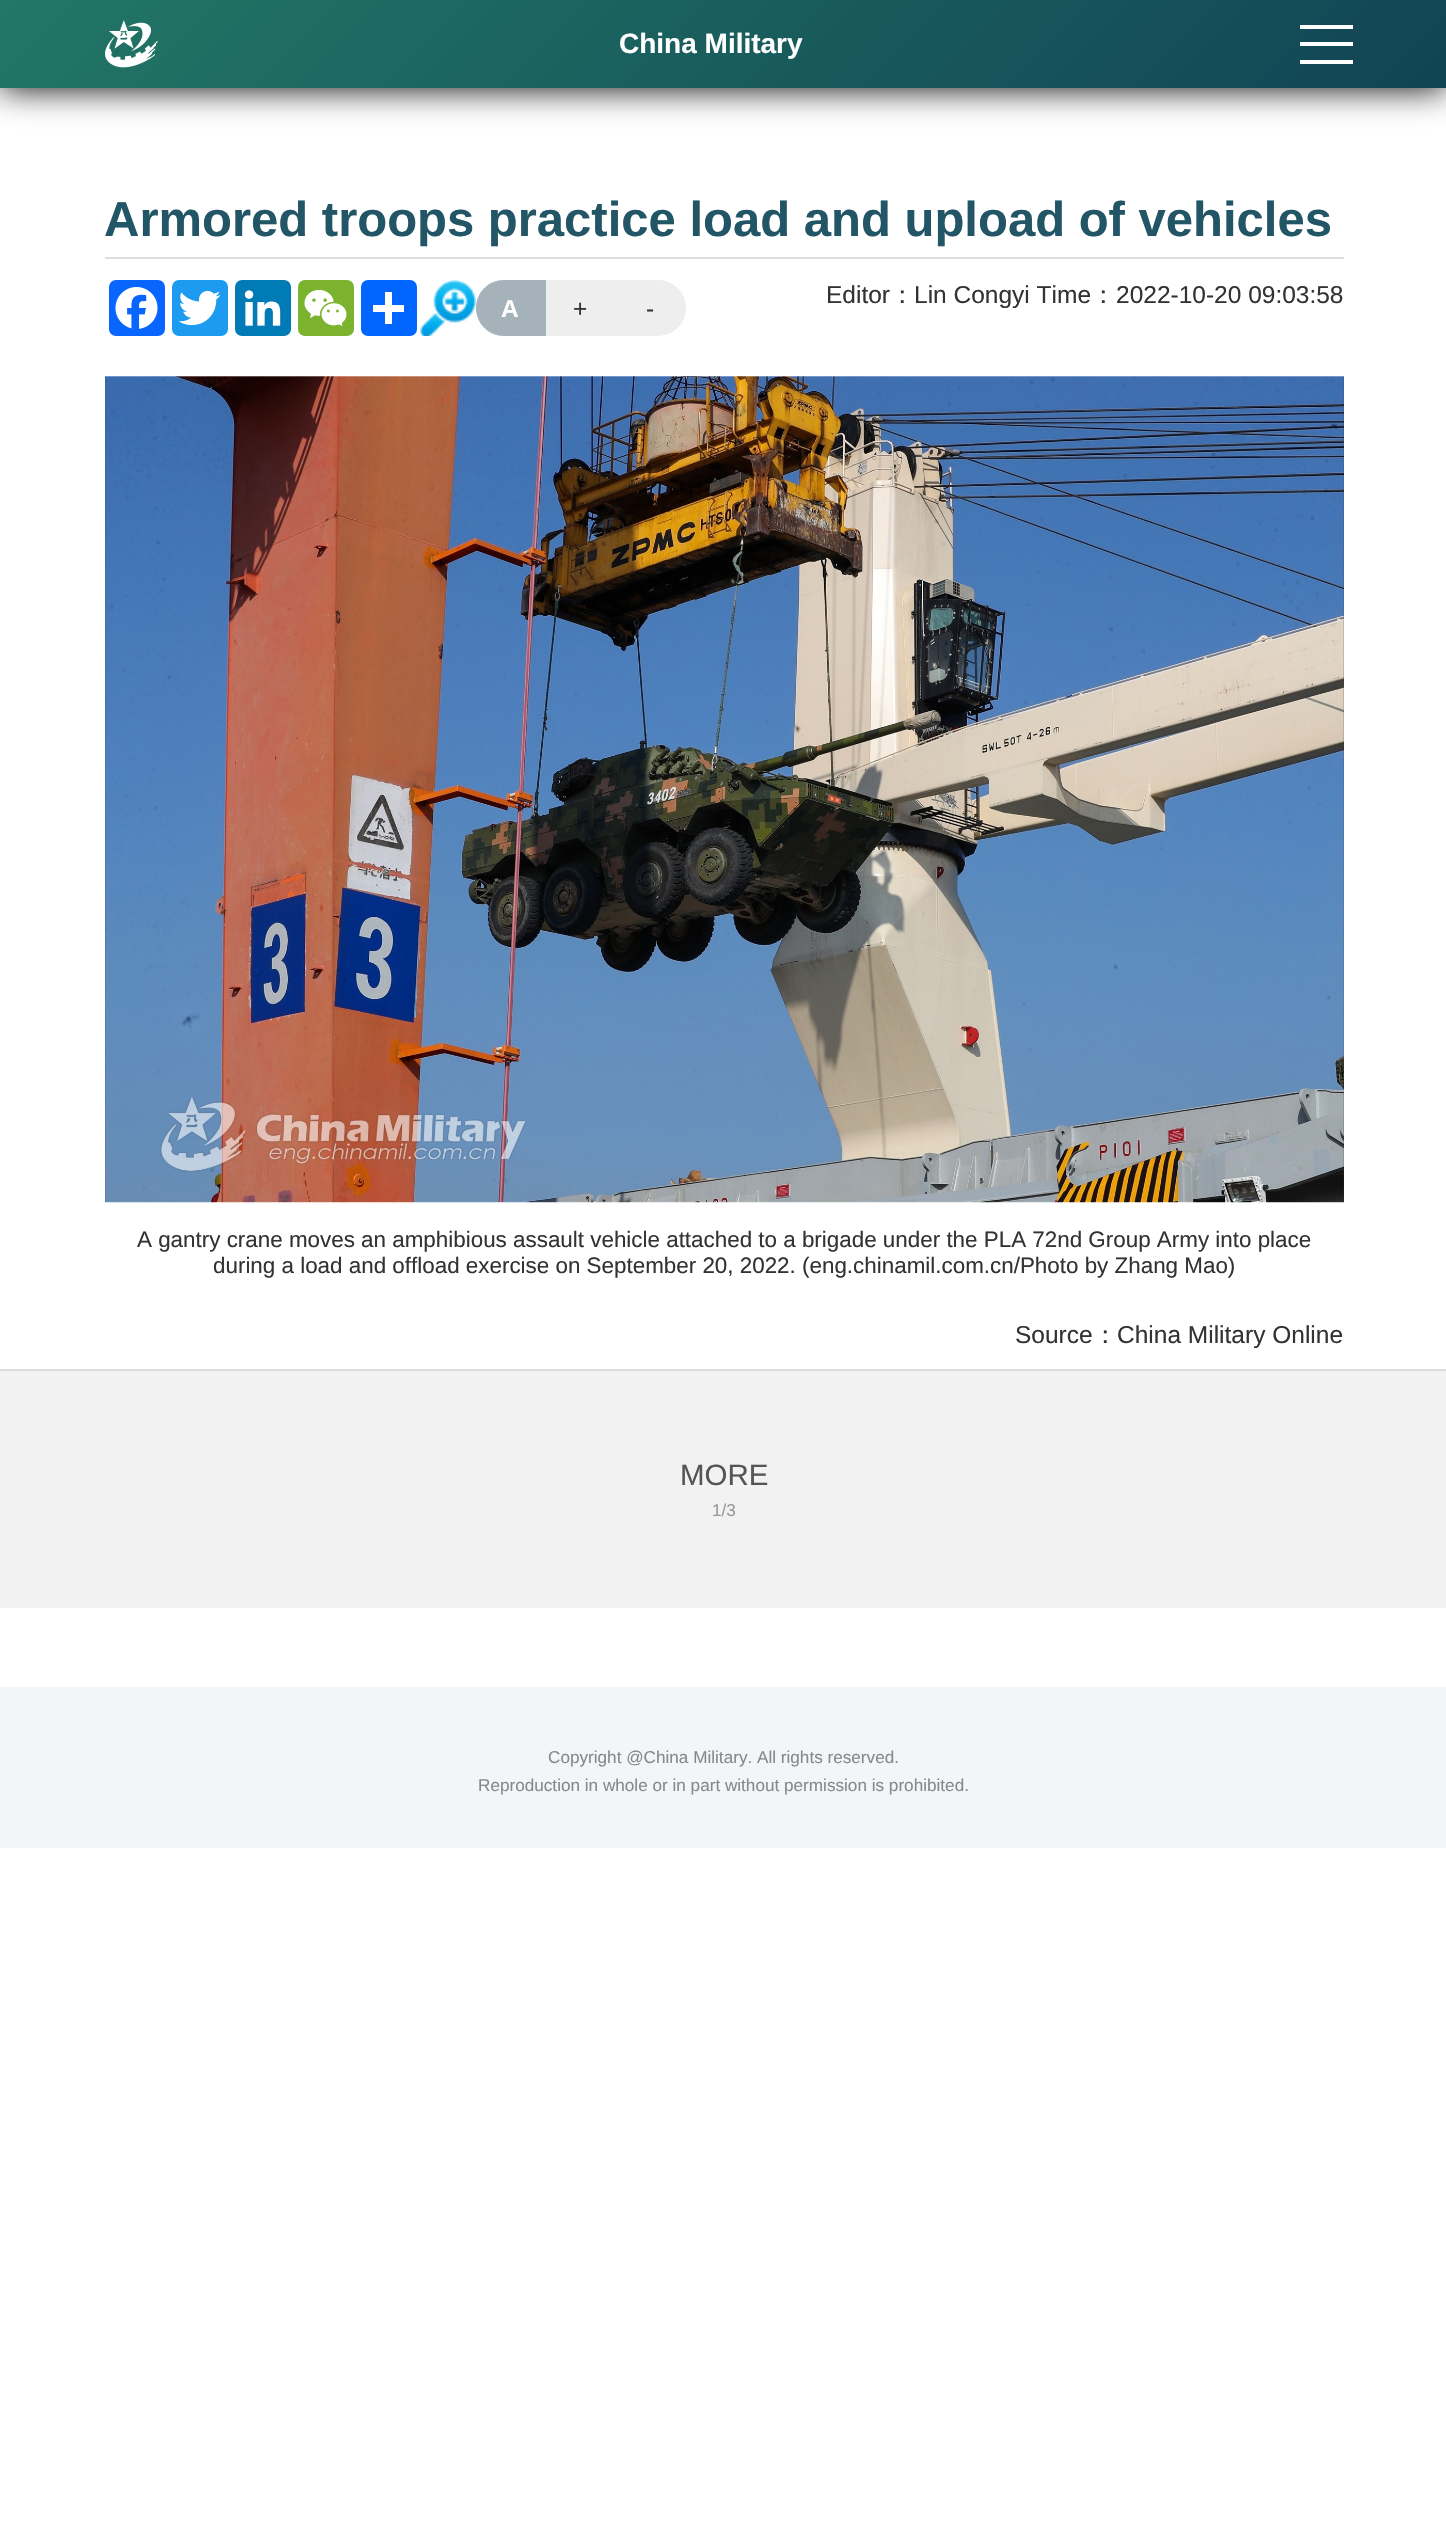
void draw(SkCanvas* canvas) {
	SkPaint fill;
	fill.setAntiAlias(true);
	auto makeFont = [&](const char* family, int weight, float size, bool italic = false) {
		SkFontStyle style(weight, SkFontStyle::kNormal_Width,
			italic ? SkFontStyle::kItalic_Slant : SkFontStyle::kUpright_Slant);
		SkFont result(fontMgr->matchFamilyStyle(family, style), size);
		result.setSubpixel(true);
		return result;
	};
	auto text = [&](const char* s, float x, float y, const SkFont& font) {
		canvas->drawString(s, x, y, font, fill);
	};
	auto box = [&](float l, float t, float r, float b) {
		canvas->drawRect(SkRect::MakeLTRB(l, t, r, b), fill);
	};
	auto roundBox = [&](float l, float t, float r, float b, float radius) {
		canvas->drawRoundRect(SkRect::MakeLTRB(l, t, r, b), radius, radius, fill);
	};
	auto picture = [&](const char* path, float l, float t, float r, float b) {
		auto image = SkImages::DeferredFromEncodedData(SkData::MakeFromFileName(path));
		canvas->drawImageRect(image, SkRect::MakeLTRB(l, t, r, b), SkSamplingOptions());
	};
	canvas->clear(0xFFFFFFFF);
	fill.setColor(0xFF000000);
	fill.setMaskFilter(SkMaskFilter::MakeBlur(kNormal_SkBlurStyle, 17.5f));
	canvas->drawRect(SkRect::MakeLTRB(0, 0, 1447, 88), fill);
	fill.setMaskFilter(nullptr);
	{
		const SkColor colors[] = {0xFF227766, 0xFF114455};
		const float stops[] = {0, 1};
		const SkPoint ends[] = {{340, -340}, {1107, 427}};
		fill.setShader(SkGradientShader::MakeLinear(ends, colors, stops, 2, SkTileMode::kClamp));
		fill.setAlpha(255);
	}
	box(0, 0, 1446, 88);
	picture("image0.png", 105, 20, 158, 68);
	fill.setShader(nullptr);
	fill.setColor(0xFFFFFFFF);
	box(1300, 42, 1353, 46);
	box(1300, 25, 1353, 29);
	box(1300, 60, 1353, 64);
	fill.setColor(0xFFDDDDDD);
	box(105, 257, 1344, 259);
	fill.setColor(0xFF0866FF);
	roundBox(109, 280, 165, 336, 7);
	picture("image1.png", 115, 287, 158, 329);
	fill.setColor(0xFF1D9BF0);
	roundBox(172, 280, 228, 336, 7);
	picture("image2.png", 178, 290, 221, 326);
	fill.setColor(0xFF007BB5);
	roundBox(235, 280, 291, 336, 7);
	picture("image3.png", 244, 290, 281, 326);
	fill.setColor(0xFF7BB32E);
	roundBox(298, 280, 354, 336, 7);
	picture("image4.png", 304, 289, 347, 326);
	fill.setColor(0xFF0166FF);
	roundBox(361, 280, 417, 336, 7);
	fill.setColor(0xFFFFFFFF);
	box(385, 292, 392, 324);
	box(373, 305, 404, 312);
	picture("image5.png", 420, 280, 476, 336);
	fill.setColor(0xFFEEEEEE);
	roundBox(476, 280, 686, 336, 28);
	fill.setColor(0xFFA5B2B9);
	canvas->drawPath(SkPathBuilder().moveTo(504, 280).lineTo(546, 280).lineTo(546, 336).lineTo(504, 336).cubicTo(488.5f, 336, 476, 323.5f, 476, 308).cubicTo(476, 292.5f, 488.5f, 280, 504, 280).close().detach(), fill);
	picture("image6.png", 105, 376, 1344, 1203);
	fill.setColor(0xFFF2F2F2);
	box(0, 1371, 1446, 1608);
	fill.setColor(0xFFDDDDDD);
	box(0, 1369, 1446, 1371);
	fill.setColor(0xFFF2F6F8);
	box(0, 1687, 1446, 1848);
	auto font1 = makeFont("Liberation Sans", 700, 28);
	fill.setColor(0xFFFFFFFF);
	text("China Military", 619, 53, font1);
	auto font2 = makeFont("Liberation Sans", 700, 49);
	fill.setColor(0xFF225566);
	text("Armored troops practice load and upload of vehicles", 104, 236, font2);
	auto font3 = makeFont("Liberation Sans", 700, 24.5f);
	fill.setColor(0xFFFFFFFF);
	text("A", 501, 317, font3);
	auto font4 = makeFont("Liberation Sans", 400, 24.5f);
	fill.setColor(0xFF333333);
	text("+", 573, 317, font4);
	text("-", 646, 317, font4);
	text("Editor", 826, 303, font4);
	auto font5 = makeFont("WenQuanYi Zen Hei", 500, 24.5f);
	text("：", 890, 303, font5);
	text("Lin Congyi Time", 914, 303, font4);
	text("：", 1091, 303, font5);
	text("2022-10-20 09:03:58", 1116, 303, font4);
	auto font6 = makeFont("Liberation Sans", 400, 22.4f);
	text("A gantry crane moves an amphibious assault vehicle attached to a brigade under the PLA 72nd Group Army into place", 137, 1247, font6);
	text("during a load and offload exercise on September 20, 2022. (eng.chinamil.com.cn/Photo by Zhang Mao)", 213, 1273, font6);
	text("Source", 1015, 1343, font4);
	text("：", 1093, 1343, font5);
	text("China Military Online", 1117, 1343, font4);
	auto font7 = makeFont("Liberation Sans", 400, 29.5f);
	fill.setColor(0xFF555555);
	text("MORE", 680, 1485, font7);
	auto font8 = makeFont("Liberation Sans", 400, 17.15f);
	fill.setColor(0xFF999999);
	text("1/3", 712, 1516, font8);
	fill.setColor(0xFF888888);
	text("Copyright @China Military. All rights reserved.", 548, 1763, font8);
	text("Reproduction in whole or in part without permission is prohibited.", 478, 1791, font8);
}
